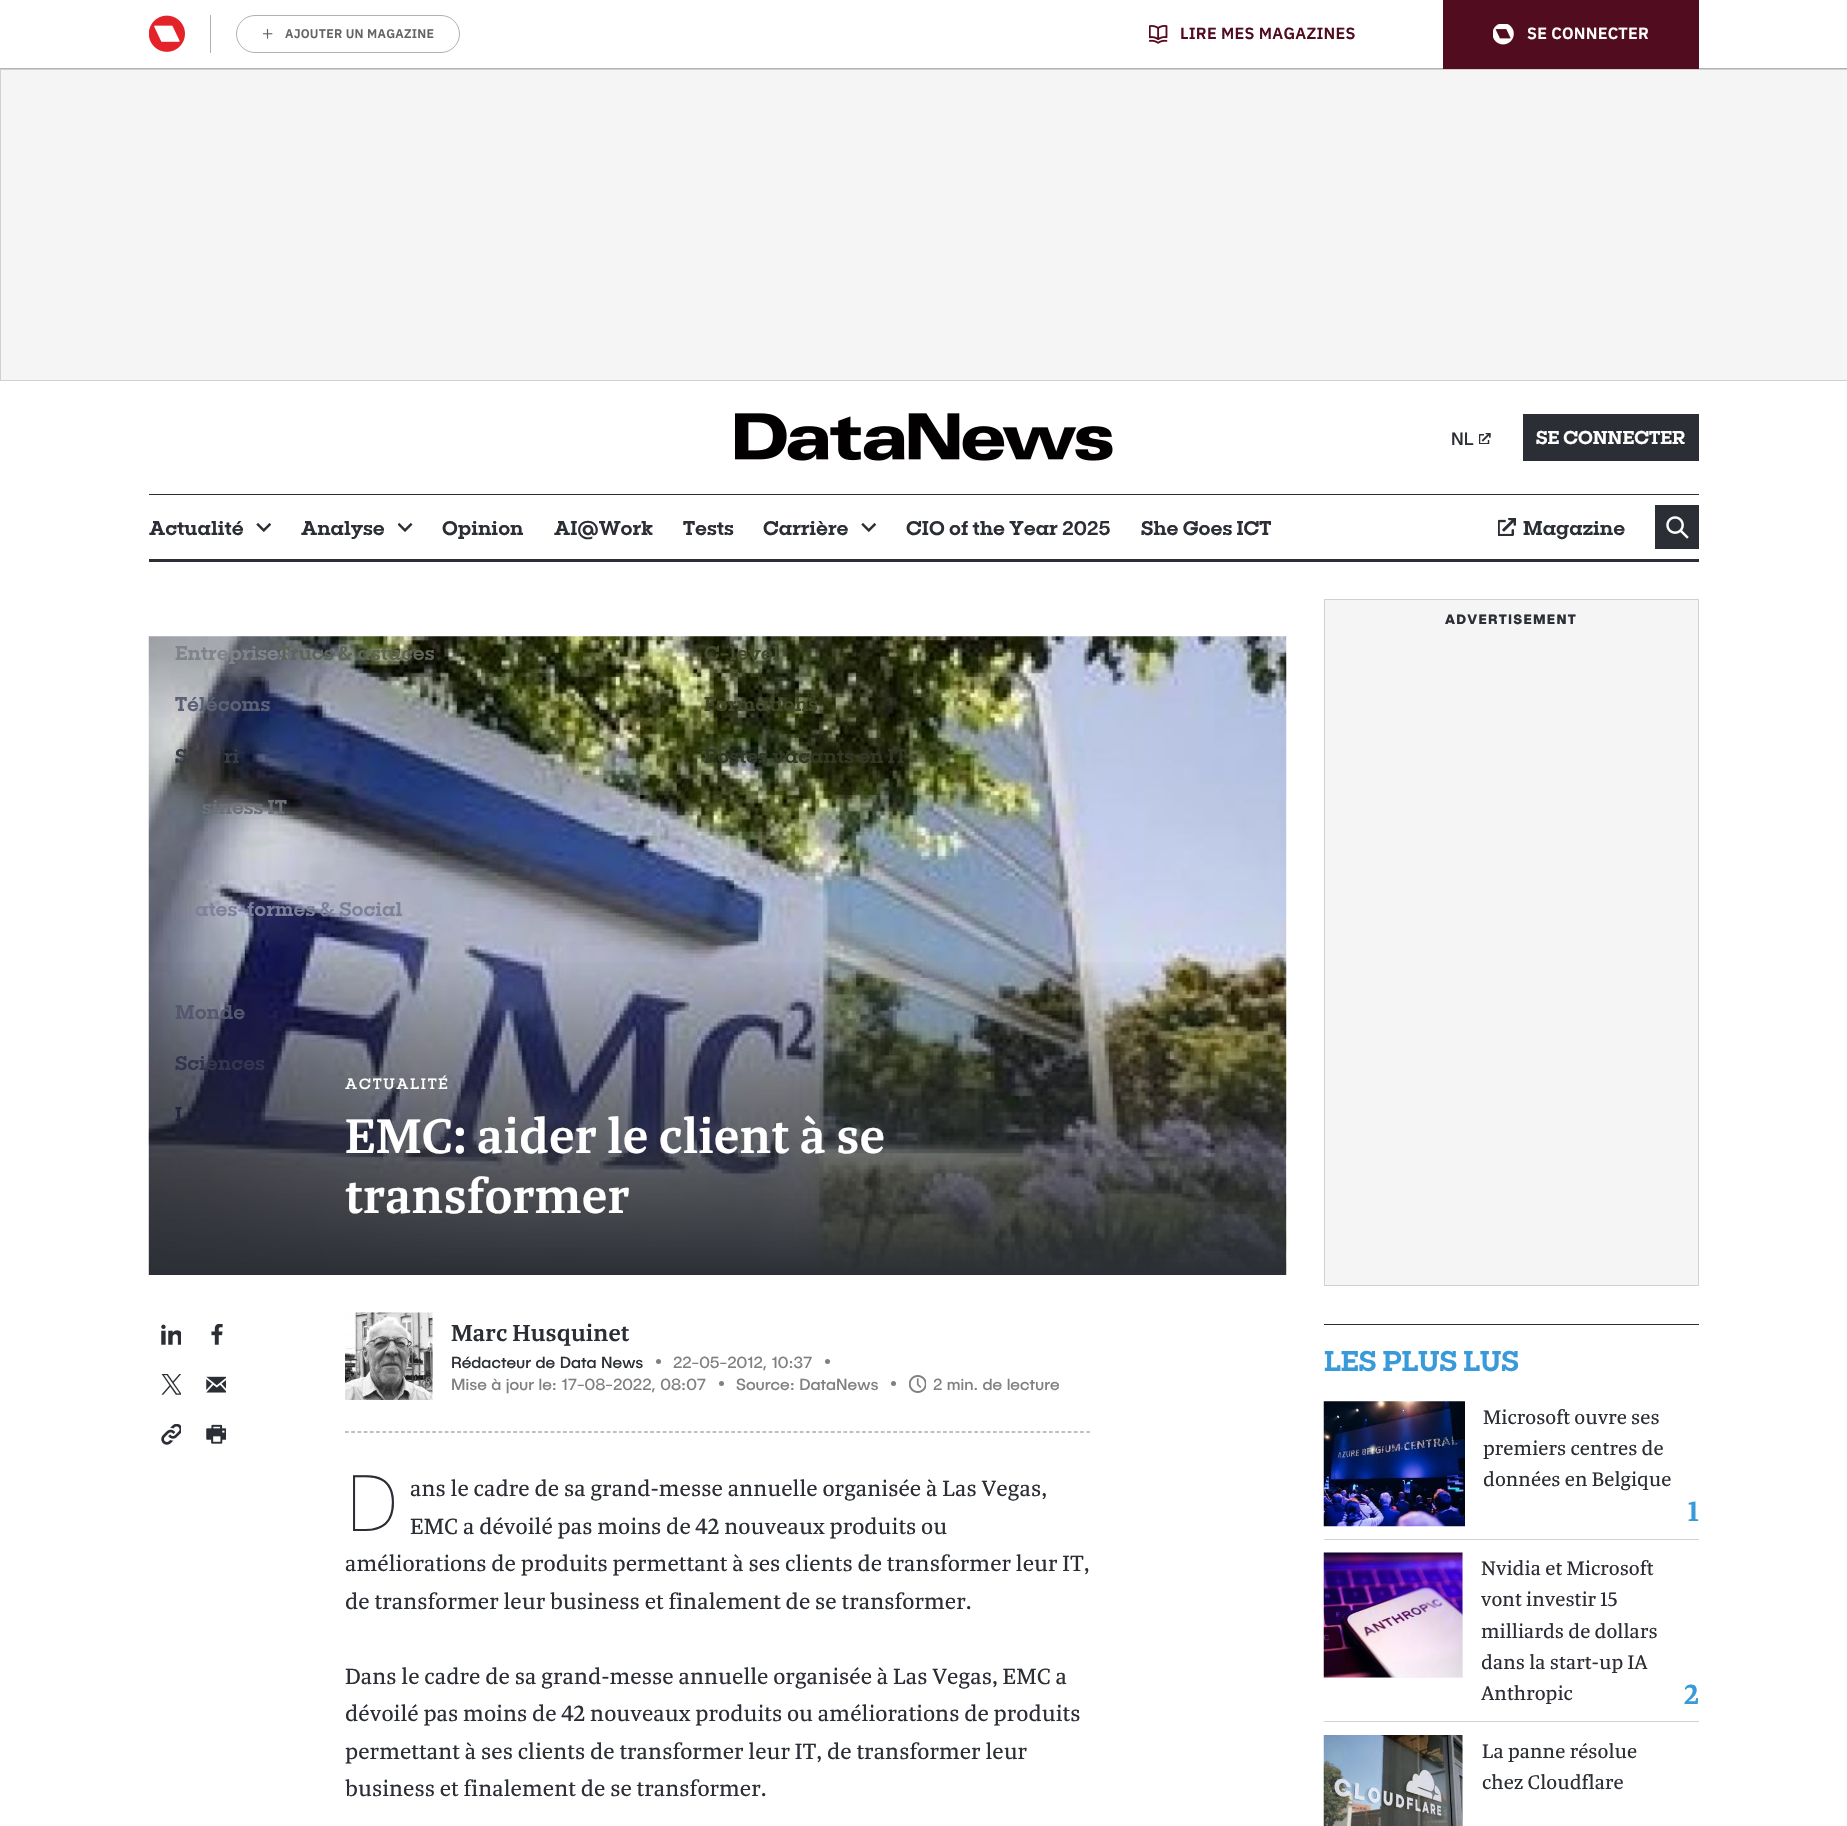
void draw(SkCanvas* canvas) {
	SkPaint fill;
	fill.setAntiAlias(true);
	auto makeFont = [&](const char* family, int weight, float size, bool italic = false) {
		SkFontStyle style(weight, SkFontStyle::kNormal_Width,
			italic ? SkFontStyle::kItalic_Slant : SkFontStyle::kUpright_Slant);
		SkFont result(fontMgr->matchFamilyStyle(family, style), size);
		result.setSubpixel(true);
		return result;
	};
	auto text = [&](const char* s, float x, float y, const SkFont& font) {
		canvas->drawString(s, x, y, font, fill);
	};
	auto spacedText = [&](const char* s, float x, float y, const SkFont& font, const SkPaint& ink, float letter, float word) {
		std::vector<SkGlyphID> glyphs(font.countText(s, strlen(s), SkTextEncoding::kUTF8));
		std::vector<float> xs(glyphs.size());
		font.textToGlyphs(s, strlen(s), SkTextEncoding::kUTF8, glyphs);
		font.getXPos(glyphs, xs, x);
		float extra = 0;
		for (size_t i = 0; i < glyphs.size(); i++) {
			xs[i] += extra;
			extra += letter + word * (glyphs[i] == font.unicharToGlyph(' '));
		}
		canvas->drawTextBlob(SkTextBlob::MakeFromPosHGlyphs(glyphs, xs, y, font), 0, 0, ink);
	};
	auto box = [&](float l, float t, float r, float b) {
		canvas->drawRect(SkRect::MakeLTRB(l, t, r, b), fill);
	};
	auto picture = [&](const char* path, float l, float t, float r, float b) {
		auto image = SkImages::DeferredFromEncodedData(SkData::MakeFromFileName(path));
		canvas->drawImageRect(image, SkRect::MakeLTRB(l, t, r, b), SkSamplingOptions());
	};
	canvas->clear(0xFFFFFFFF);
	fill.setColor(0xFFB2B2B2);
	box(0, 68, 1847, 69);
	fill.setColor(0xFFB2B1B1);
	box(210, 15, 211, 53);
	picture("image0.png", 149, 15, 185, 52);
	fill.setStyle(SkPaint::kStroke_Style);
	fill.setStrokeWidth(1);
	canvas->drawRoundRect(SkRect::MakeLTRB(236.5f, 15.5f, 459.5f, 52.5f), 18.5f, 18.5f, fill);
	picture("image1.png", 263, 29, 273, 39);
	picture("image2.png", 1149, 25, 1168, 44);
	fill.setStyle(SkPaint::kFill_Style);
	fill.setColor(0xFF520C20);
	box(1443, 0, 1699, 69);
	picture("image3.png", 1493, 24, 1514, 45);
	fill.setColor(0xFFF5F5F5);
	canvas->drawRect(SkRect::MakeLTRB(0.5f, 69.5f, 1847.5f, 380.5f), fill);
	fill.setStyle(SkPaint::kStroke_Style);
	fill.setColor(0xFFD1D1D1);
	canvas->drawRect(SkRect::MakeLTRB(0.5f, 69.5f, 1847.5f, 380.5f), fill);
	picture("image4.png", 735, 413, 1113, 461);
	picture("image5.png", 1479, 433, 1491, 444);
	fill.setStyle(SkPaint::kFill_Style);
	fill.setColor(0xFF2B2E34);
	box(1523, 414, 1699, 461);
	box(149, 494, 1699, 495);
	box(149, 559, 1699, 562);
	picture("image6.png", 256, 523, 271, 532);
	picture("image6.png", 861, 523, 876, 532);
	picture("image7.png", 398, 523, 413, 532);
	picture("image8.png", 1498, 518, 1516, 536);
	box(1655, 505, 1699, 549);
	picture("image9.png", 1666, 516, 1689, 539);
	picture("image10.png", 148, 636, 1287, 1275);
	{
		const SkColor colors[] = {0x002B2E34, 0xFF2B2E34};
		const float stops[] = {0.5f, 1};
		const SkPoint ends[] = {{718, 636}, {718, 1275}};
		fill.setShader(SkGradientShader::MakeLinear(ends, colors, stops, 2, SkTileMode::kClamp));
		fill.setAlpha(255);
	}
	box(149, 962, 1286, 1275);
	picture("image11.png", 161, 1324, 181, 1345);
	picture("image12.png", 211, 1324, 223, 1345);
	picture("image13.png", 161, 1374, 181, 1395);
	picture("image14.png", 206, 1376, 226, 1393);
	picture("image15.png", 161, 1424, 181, 1445);
	picture("image16.png", 206, 1424, 226, 1444);
	fill.setStyle(SkPaint::kStroke_Style);
	fill.setStrokeWidth(1.2f);
	fill.setShader(nullptr);
	fill.setColor(0xFF808080);
	fill.setPathEffect(SkDashPathEffect::Make({{3.75f, 2.48f}}, 0));
	canvas->drawPath(SkPathBuilder().moveTo(345, 1432).lineTo(1090, 1432).detach(), fill);
	fill.setPathEffect(nullptr);
	picture("image17.png", 345, 1312, 433, 1400);
	fill.setStyle(SkPaint::kFill_Style);
	canvas->drawCircle(658.5f, 1361.5f, 2.5f, fill);
	canvas->drawCircle(827.5f, 1361.5f, 2.5f, fill);
	canvas->drawCircle(721.5f, 1383.5f, 2.5f, fill);
	canvas->drawCircle(893.5f, 1383.5f, 2.5f, fill);
	picture("image18.png", 909, 1375, 926, 1393);
	fill.setColor(0xFFF5F5F5);
	canvas->drawRect(SkRect::MakeLTRB(1324.5f, 599.5f, 1698.5f, 1285.5f), fill);
	fill.setStyle(SkPaint::kStroke_Style);
	fill.setStrokeWidth(1);
	fill.setColor(0xFFD1D1D1);
	canvas->drawRect(SkRect::MakeLTRB(1324.5f, 599.5f, 1698.5f, 1285.5f), fill);
	fill.setStyle(SkPaint::kFill_Style);
	fill.setColor(0xFF2B2E34);
	box(1324, 1324, 1699, 1325);
	fill.setColor(0xFFD1D1D1);
	box(1324, 1539, 1699, 1540);
	picture("image19.png", 1323, 1401, 1465, 1527);
	box(1324, 1721, 1699, 1722);
	fill.setColor(0xFFF5F5F5);
	box(1324, 1553, 1463, 1678);
	picture("image20.png", 1323, 1552, 1463, 1678);
	box(1462, 1735, 1463, 1826);
	picture("image21.png", 1323, 1735, 1463, 1826);
	auto font1 = makeFont("IBM Plex Sans", 600, 12.5f);
	fill.setColor(0xFF646363);
	spacedText("AJOUTER UN MAGAZINE", 285, 38, font1, fill, 0.25f, 0);
	auto font2 = makeFont("IBM Plex Sans", 600, 16.25f);
	fill.setColor(0xFF520C20);
	spacedText("LIRE MES MAGAZINES", 1180, 39, font2, fill, 0.25f, 0);
	fill.setColor(0xFFFFFFFF);
	spacedText("SE CONNECTER", 1527, 39, font2, fill, 0.25f, 0);
	auto font3 = makeFont("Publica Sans", 400, 18);
	fill.setColor(0xFF2B2E34);
	text("NL", 1451, 445, font3);
	auto font4 = makeFont("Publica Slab", 500, 18.75f);
	fill.setColor(0xFFFFFFFF);
	text("SE CONNECTER", 1536, 444, font4);
	auto font5 = makeFont("Publica Slab", 500, 20);
	fill.setColor(0xFF2B2E34);
	text("Actualité", 149, 535, font5);
	fill.setColor(0xFF80838A);
	text("Entreprises", 175, 660, font5);
	fill.setColor(0xFF5B6076);
	text("Télécoms", 175, 711, font5);
	fill.setColor(0xFF383C46);
	text("S", 175, 763, font5);
	text("ri", 224, 763, font5);
	fill.setColor(0xFF6C7077);
	text("siness IT", 202, 814, font5);
	fill.setColor(0xFF7E819A);
	text("ates-formes & Social", 195, 916, font5);
	fill.setColor(0xFF54586E);
	text("Monde", 175, 1019, font5);
	fill.setColor(0xFF33354E);
	text("Sciences", 175, 1070, font5);
	fill.setColor(0xFF23253B);
	text("L", 175, 1121, font5);
	fill.setColor(0xFF2B2E34);
	text("Opinion", 442, 535, font5);
	text("AI@Work", 554, 535, font5);
	text("Carrière", 763, 535, font5);
	fill.setColor(0xFF434A2D);
	text("C-level", 704, 660, font5);
	fill.setColor(0xFF404627);
	text("Formations", 704, 711, font5);
	fill.setColor(0xFF323823);
	text("Postes vacants en IT", 704, 763, font5);
	fill.setColor(0xFF2B2E34);
	text("CIO of the Year 2025", 906, 535, font5);
	text("She Goes ICT", 1141, 535, font5);
	text("Analyse", 301, 535, font5);
	fill.setColor(0xFF5E6457);
	text("Trucs & astuces", 278, 660, font5);
	fill.setColor(0xFF2B2E34);
	text("Tests", 683, 535, font5);
	text("Magazine", 1523, 535, font5);
	auto font6 = makeFont("Publica Slab", 400, 15);
	fill.setColor(0xFFFFFFFF);
	spacedText("ACTUALITÉ", 345, 1089, font6, fill, 1.9f, 0);
	auto font7 = makeFont("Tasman", 600, 52.5f);
	text("EMC: aider le client à se", 345, 1153, font7);
	text("transformer", 345, 1213, font7);
	auto font8 = makeFont("Tasman", 600, 25);
	fill.setColor(0xFF2B2E34);
	text("Marc Husquinet", 451, 1341, font8);
	auto font9 = makeFont("Publica Sans", 400, 16.25f);
	text("Rédacteur de Data News", 451, 1368, font9);
	fill.setColor(0xFF808080);
	text("22-05-2012, 10:37", 673, 1368, font9);
	text("Mise à jour le: 17-08-2022, 08:07", 451, 1390, font9);
	text("Source: DataNews", 736, 1390, font9);
	text("2 min. de lecture", 933, 1390, font9);
	auto font10 = makeFont("Noto Sans", 100, 78);
	fill.setColor(0xFF2B2E34);
	text("D", 345, 1531, font10);
	auto font11 = makeFont("Tasman", 400, 23.75f);
	text("ans le cadre de sa grand-messe annuelle organisée à Las Vegas,", 410, 1496, font11);
	text("EMC a dévoilé pas moins de 42 nouveaux produits ou", 410, 1534, font11);
	text("améliorations de produits permettant à ses clients de transformer leur IT,", 345, 1571, font11);
	text("de transformer leur business et finalement de se transformer.", 345, 1609, font11);
	text("Dans le cadre de sa grand-messe annuelle organisée à Las Vegas, EMC a", 345, 1684, font11);
	text("dévoilé pas moins de 42 nouveaux produits ou améliorations de produits", 345, 1721, font11);
	text("permettant à ses clients de transformer leur IT, de transformer leur", 345, 1759, font11);
	text("business et finalement de se transformer.", 345, 1796, font11);
	auto font12 = makeFont("Publica Sans", 700, 13.75f);
	spacedText("ADVERTISEMENT", 1445, 624, font12, fill, 1.25f, 0);
	auto font13 = makeFont("Publica Slab", 500, 28.75f);
	fill.setColor(0xFF399ADA);
	text("LES PLUS LUS", 1324, 1371, font13);
	auto font14 = makeFont("Tasman", 400, 21.25f);
	fill.setColor(0xFF2B2E34);
	text("Microsoft ouvre ses", 1483, 1424, font14);
	text("premiers centres de", 1483, 1455, font14);
	text("données en Belgique", 1483, 1486, font14);
	auto font15 = makeFont("Tasman", 600, 30);
	fill.setColor(0xFF399ADA);
	text("1", 1688, 1521, font15);
	fill.setColor(0xFF2B2E34);
	text("Nvidia et Microsoft", 1481, 1575, font14);
	text("vont investir 15", 1481, 1606, font14);
	text("milliards de dollars", 1481, 1638, font14);
	text("dans la start-up IA", 1481, 1669, font14);
	text("Anthropic", 1481, 1700, font14);
	fill.setColor(0xFF399ADA);
	text("2", 1684, 1704, font15);
	fill.setColor(0xFF2B2E34);
	text("La panne résolue", 1482, 1758, font14);
	text("chez Cloudflare", 1482, 1789, font14);
}
